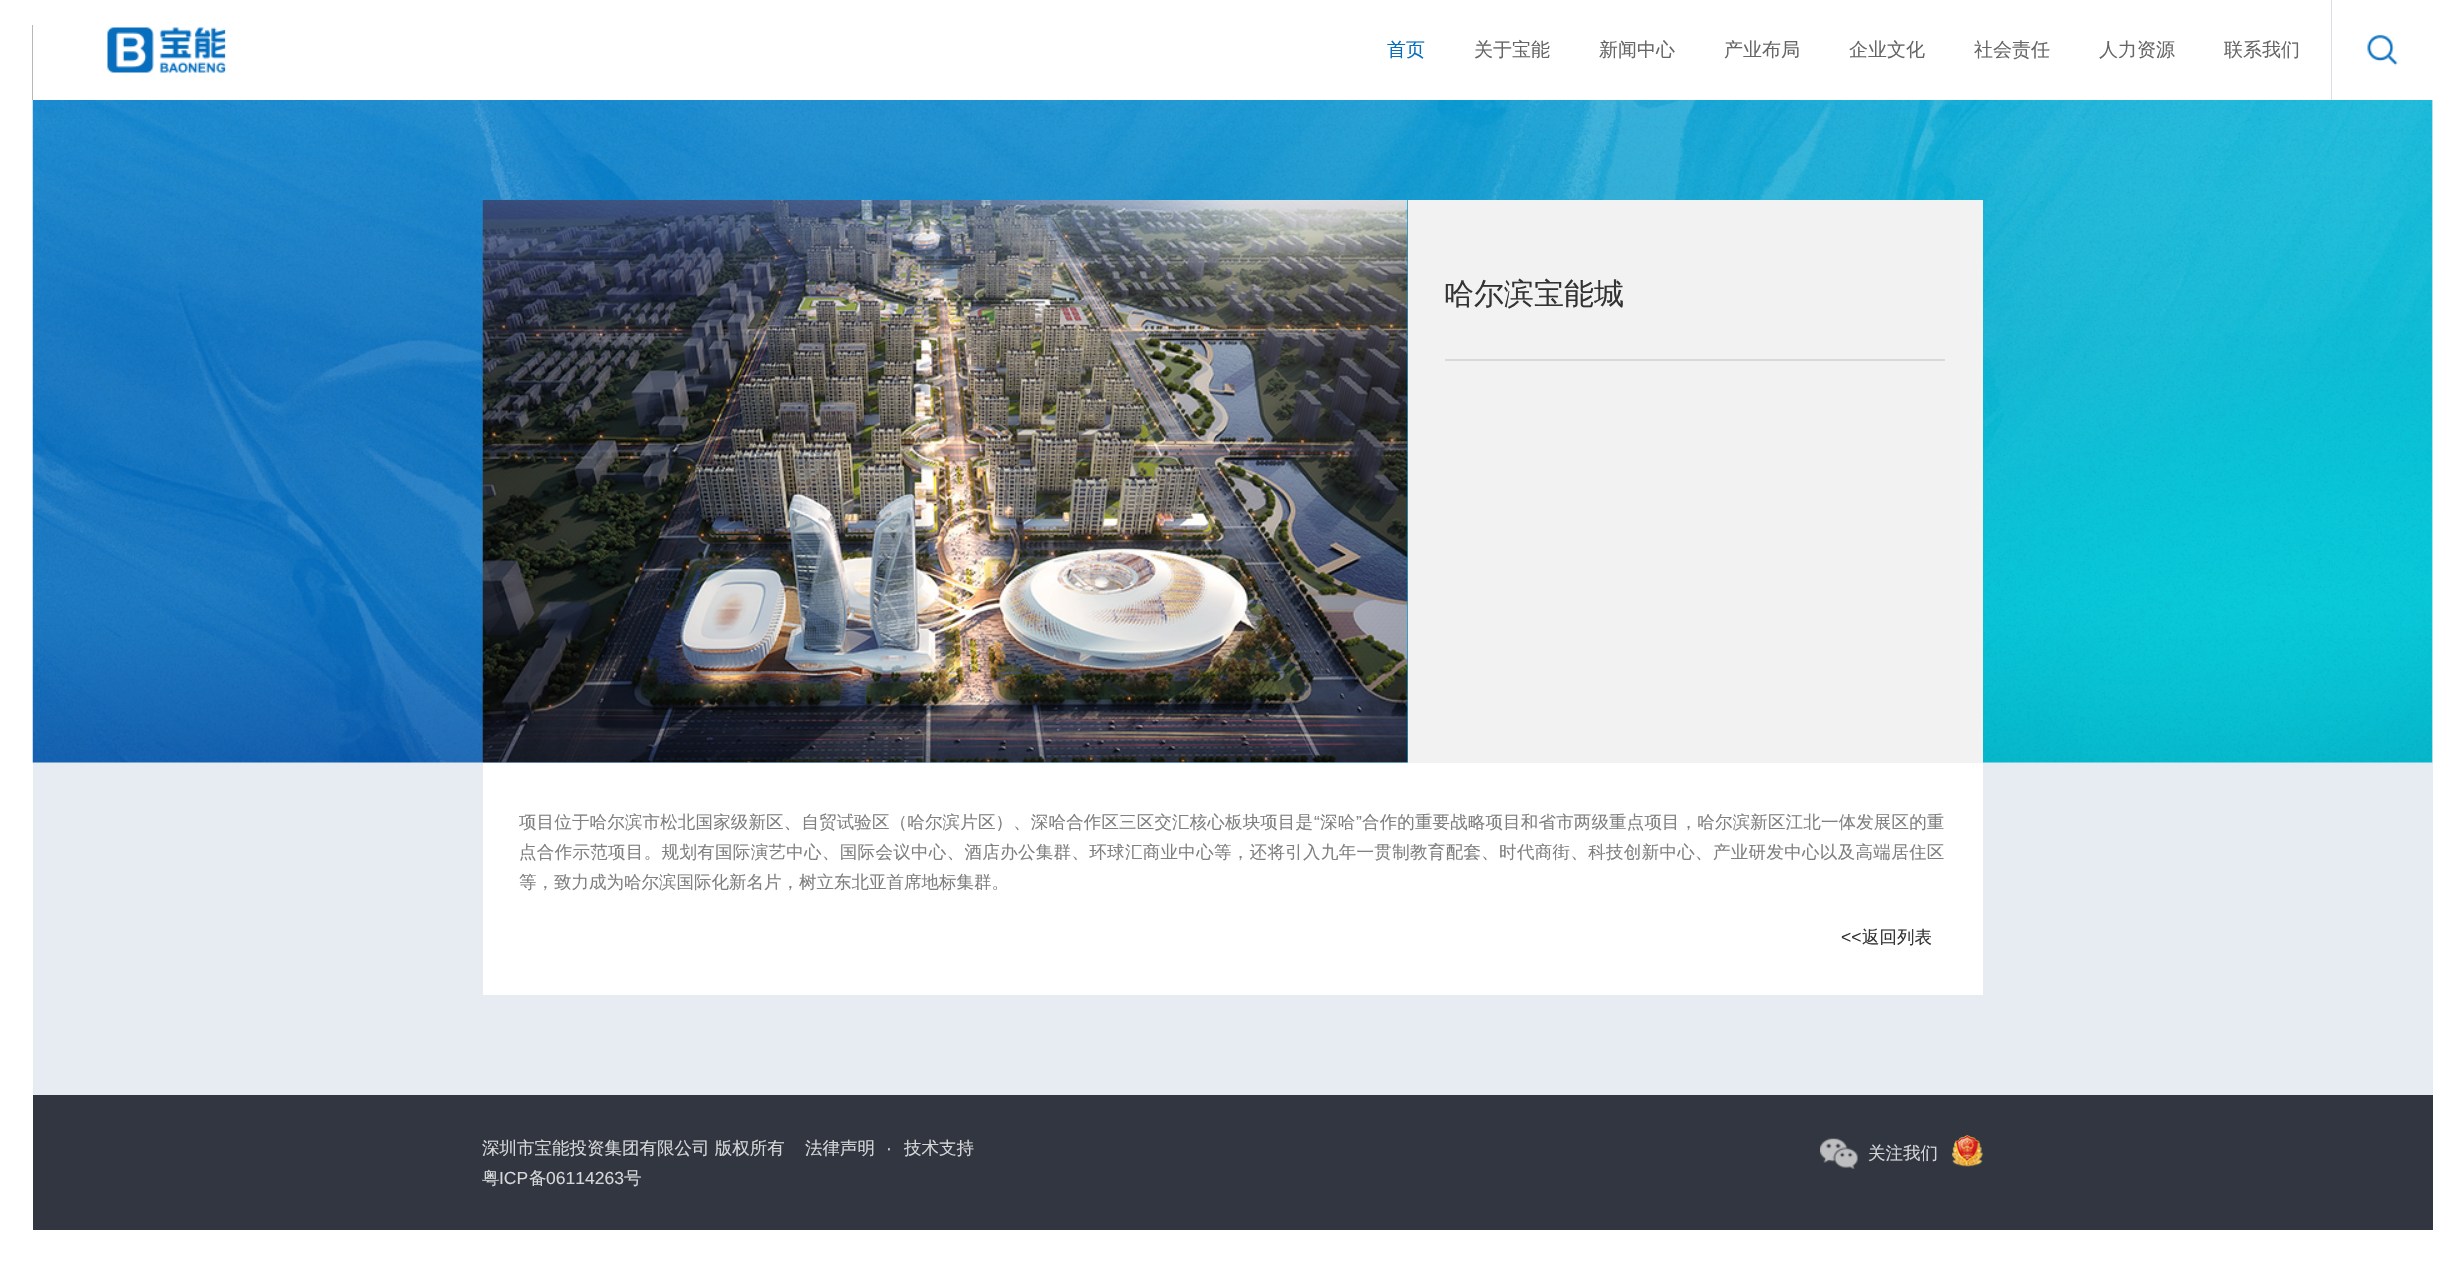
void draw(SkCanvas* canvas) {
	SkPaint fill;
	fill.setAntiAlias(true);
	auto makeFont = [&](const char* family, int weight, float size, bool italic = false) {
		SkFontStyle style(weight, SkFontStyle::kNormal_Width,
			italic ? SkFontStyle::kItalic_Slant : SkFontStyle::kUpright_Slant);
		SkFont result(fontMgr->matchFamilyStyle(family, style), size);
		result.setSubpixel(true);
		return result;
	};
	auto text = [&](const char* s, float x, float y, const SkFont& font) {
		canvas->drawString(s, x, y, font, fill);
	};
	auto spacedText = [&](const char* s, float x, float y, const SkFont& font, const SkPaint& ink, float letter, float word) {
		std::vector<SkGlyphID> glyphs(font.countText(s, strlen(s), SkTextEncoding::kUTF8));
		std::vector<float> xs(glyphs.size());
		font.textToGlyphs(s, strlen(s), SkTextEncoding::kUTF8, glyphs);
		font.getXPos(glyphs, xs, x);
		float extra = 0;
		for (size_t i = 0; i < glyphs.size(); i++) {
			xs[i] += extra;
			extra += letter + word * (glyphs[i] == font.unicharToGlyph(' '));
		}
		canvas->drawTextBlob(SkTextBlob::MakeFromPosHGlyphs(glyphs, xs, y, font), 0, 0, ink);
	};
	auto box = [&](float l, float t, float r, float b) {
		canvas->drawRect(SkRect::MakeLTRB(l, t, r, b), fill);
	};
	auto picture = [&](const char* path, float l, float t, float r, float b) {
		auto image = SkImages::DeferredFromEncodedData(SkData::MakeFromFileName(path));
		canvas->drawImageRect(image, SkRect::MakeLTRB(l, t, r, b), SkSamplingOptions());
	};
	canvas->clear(0xFFFFFFFF);
	picture("image0.png", 32, 25, 33, 100);
	picture("image1.png", 107, 27, 226, 73);
	fill.setColor(0xFFD8DFE6);
	box(2331, 0, 2332, 100);
	picture("image2.png", 2367, 34, 2398, 66);
	fill.setColor(0xFFE6ECF2);
	box(33, 100, 2433, 1095);
	picture("image3.png", 32, 100, 2433, 763);
	picture("image4.png", 482, 200, 1408, 763);
	fill.setColor(0xFFF2F2F2);
	box(1408, 200, 1983, 763);
	fill.setColor(0xFFD9D9D9);
	box(1445, 359, 1945, 361);
	fill.setColor(0xFFFFFFFF);
	box(483, 763, 1983, 995);
	fill.setColor(0xFF313640);
	box(33, 1095, 2433, 1230);
	picture("image5.png", 1820, 1138, 1858, 1169);
	picture("image6.png", 1952, 1135, 1983, 1167);
	auto font1 = makeFont("WenQuanYi Zen Hei", 500, 19);
	fill.setColor(0xFF076EBE);
	text("首页", 1387, 56, font1);
	fill.setColor(0xFF666666);
	text("关于宝能", 1474, 56, font1);
	text("新闻中心", 1599, 56, font1);
	text("产业布局", 1724, 56, font1);
	text("企业文化", 1849, 56, font1);
	text("社会责任", 1974, 56, font1);
	text("人力资源", 2099, 56, font1);
	text("联系我们", 2224, 56, font1);
	auto font2 = makeFont("WenQuanYi Zen Hei", 500, 30);
	fill.setColor(0xFF333333);
	text("哈尔滨宝能城", 1444, 304, font2);
	auto font3 = makeFont("WenQuanYi Zen Hei", 500, 17.5f);
	fill.setColor(0xFF808080);
	spacedText("项目位于哈尔滨市松北国家级新区、自贸试验区（哈尔滨片区）、深哈合作区三区交汇核心板块项目是", 519, 828, font3, fill, 0.15f, 0);
	auto font4 = makeFont("Liberation Sans", 400, 17.5f);
	spacedText("“", 1314, 828, font4, fill, 0.15f, 0);
	spacedText("深哈", 1320, 828, font3, fill, 0.15f, 0);
	spacedText("”", 1356, 828, font4, fill, 0.15f, 0);
	spacedText("合作的重要战略项目和省市两级重点项目，哈尔滨新区江北一体发展区的重", 1362, 828, font3, fill, 0.15f, 0);
	spacedText("点合作示范项目。规划有国际演艺中心、国际会议中心、酒店办公集群、环球汇商业中心等，还将引入九年一贯制教育配套、时代商街、科技创新中心、产业研发中心以及高端居住区", 519, 858, font3, fill, 0.32f, 0);
	text("等，致力成为哈尔滨国际化新名片，树立东北亚首席地标集群。", 519, 888, font3);
	fill.setColor(0xFF333333);
	text("<<", 1841, 943, font4);
	text("返回列表", 1862, 943, font3);
	fill.setColor(0xFFD6D7D9);
	text("深圳市宝能投资集团有限公司 版权所有", 482, 1154, font3);
	text("法律声明", 805, 1154, font3);
	text("·", 886, 1154, font4);
	text("技术支持", 904, 1154, font3);
	text("粤", 482, 1184, font3);
	text("ICP", 499, 1184, font4);
	text("备", 529, 1184, font3);
	text("06114263", 546, 1184, font4);
	text("号", 624, 1184, font3);
	text("关注我们", 1868, 1159, font3);
}
